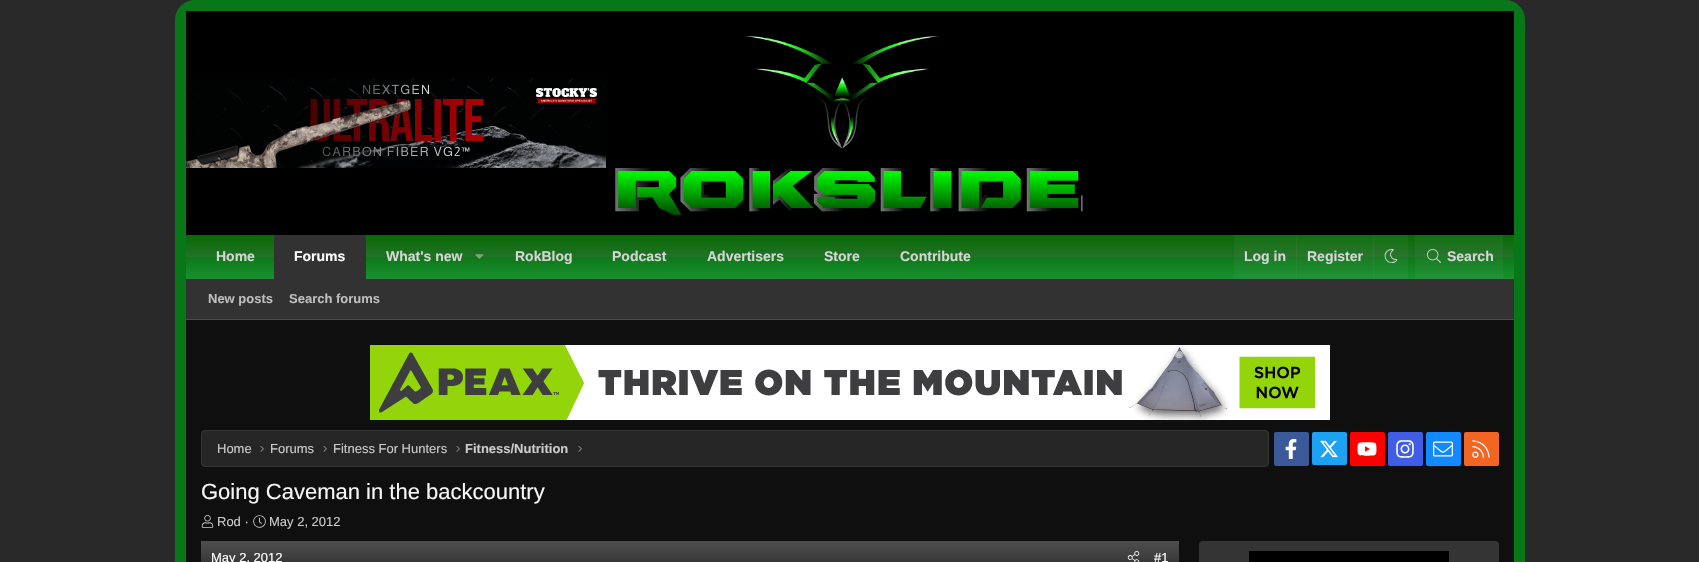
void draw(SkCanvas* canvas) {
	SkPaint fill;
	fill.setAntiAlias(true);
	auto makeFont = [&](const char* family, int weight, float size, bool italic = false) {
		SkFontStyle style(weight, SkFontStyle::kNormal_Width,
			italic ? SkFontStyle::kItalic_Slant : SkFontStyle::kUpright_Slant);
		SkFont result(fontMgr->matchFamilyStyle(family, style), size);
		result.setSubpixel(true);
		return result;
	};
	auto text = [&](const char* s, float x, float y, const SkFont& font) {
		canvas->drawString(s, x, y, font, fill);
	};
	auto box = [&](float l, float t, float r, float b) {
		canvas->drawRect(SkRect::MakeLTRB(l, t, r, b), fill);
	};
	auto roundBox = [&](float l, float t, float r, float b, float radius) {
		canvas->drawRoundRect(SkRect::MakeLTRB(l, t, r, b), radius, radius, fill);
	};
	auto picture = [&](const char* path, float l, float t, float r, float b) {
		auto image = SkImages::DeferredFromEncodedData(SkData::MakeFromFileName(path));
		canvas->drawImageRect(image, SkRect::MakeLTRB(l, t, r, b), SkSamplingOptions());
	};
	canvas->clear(0xFF292929);
	fill.setStyle(SkPaint::kStroke_Style);
	fill.setStrokeWidth(11);
	fill.setColor(0xFF087717);
	canvas->drawRoundRect(SkRect::MakeLTRB(180.5f, 5.5f, 1519.5f, 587.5f), 14.5f, 14.5f, fill);
	fill.setStyle(SkPaint::kFill_Style);
	fill.setColor(0xFF000000);
	box(186, 11, 1514, 235);
	picture("image0.png", 186, 78, 606, 168);
	picture("image1.png", 615, 36, 1083, 215);
	{
		const SkColor colors[] = {0xFF096A06, 0xFF227227, 0xFF0D7819, 0xFF18912E};
		const float stops[] = {0.01f, 0.49f, 0.5f, 1};
		const SkPoint ends[] = {{850, 235}, {850, 279}};
		fill.setShader(SkGradientShader::MakeLinear(ends, colors, stops, 4, SkTileMode::kClamp));
		fill.setAlpha(255);
	}
	box(186, 235, 1514, 279);
	fill.setShader(nullptr);
	fill.setColor(0xFF323232);
	canvas->drawPath(SkPathBuilder().moveTo(276, 235).lineTo(364, 235).cubicTo(365, 235, 366, 236, 366, 237).lineTo(366, 279).lineTo(274, 279).lineTo(274, 237).cubicTo(274, 236, 275, 235, 276, 235).close().detach(), fill);
	picture("image2.png", 475, 254, 484, 259);
	fill.setColor(0x0DCCCCCC);
	box(1234, 235, 1408, 279);
	box(1296, 235, 1297, 279);
	box(1373, 235, 1374, 279);
	picture("image3.png", 1384, 249, 1398, 263);
	box(1415, 235, 1503, 279);
	picture("image4.png", 1427, 249, 1441, 263);
	fill.setColor(0xFF323232);
	box(186, 279, 1514, 319);
	fill.setColor(0xFF4D4D4D);
	box(186, 319, 1514, 320);
	fill.setColor(0xFF0F0F0F);
	box(186, 320, 1514, 562);
	picture("image5.png", 370, 345, 1330, 420);
	fill.setColor(0xFF262626);
	canvas->drawRoundRect(SkRect::MakeLTRB(201.5f, 430.5f, 1268.5f, 466.5f), 3.5f, 3.5f, fill);
	fill.setStyle(SkPaint::kStroke_Style);
	fill.setStrokeWidth(1);
	fill.setColor(0xFF363636);
	canvas->drawRoundRect(SkRect::MakeLTRB(201.5f, 430.5f, 1268.5f, 466.5f), 3.5f, 3.5f, fill);
	picture("image6.png", 260, 446, 264, 452);
	picture("image6.png", 323, 446, 327, 452);
	picture("image6.png", 456, 446, 460, 452);
	picture("image6.png", 578, 446, 582, 452);
	fill.setStyle(SkPaint::kFill_Style);
	fill.setColor(0xFF3B5998);
	roundBox(1274, 432, 1309, 466, 2);
	picture("image7.png", 1285, 439, 1297, 459);
	fill.setColor(0xFF1DA1F3);
	roundBox(1312, 432, 1347, 465, 2);
	picture("image8.png", 1320, 440, 1338, 458);
	fill.setColor(0xFFFF0000);
	roundBox(1350, 432, 1385, 466, 2);
	picture("image9.png", 1357, 442, 1377, 456);
	fill.setColor(0xFF405DE6);
	roundBox(1388, 432, 1423, 466, 2);
	picture("image10.png", 1396, 440, 1414, 458);
	fill.setColor(0xFF1289FF);
	roundBox(1426, 432, 1461, 466, 2);
	picture("image11.png", 1433, 441, 1453, 457);
	fill.setColor(0xFFF26522);
	roundBox(1464, 432, 1499, 466, 2);
	picture("image12.png", 1472, 440, 1490, 458);
	picture("image13.png", 201, 515, 214, 528);
	picture("image14.png", 253, 515, 266, 528);
	{
		const SkColor colors[] = {0xFF4F4F4F, 0xFF2B2B2B};
		const float stops[] = {0, 1};
		const SkPoint ends[] = {{690, 541}, {690, 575}};
		fill.setShader(SkGradientShader::MakeLinear(ends, colors, stops, 2, SkTileMode::kClamp));
		fill.setAlpha(255);
	}
	box(201, 541, 1179, 562);
	picture("image15.png", 1127, 551, 1140, 562);
	fill.setShader(nullptr);
	fill.setColor(0xFF343434);
	roundBox(1199, 541, 1499, 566, 4);
	fill.setColor(0xFF000000);
	box(1249, 551, 1449, 562);
	auto font1 = makeFont("Liberation Sans", 700, 14);
	fill.setColor(0xFFD6D6D6);
	text("Home", 216, 261, font1);
	fill.setColor(0xFFFFFFFF);
	text("Forums", 294, 261, font1);
	fill.setColor(0xFFD6D6D6);
	text("What's new", 386, 261, font1);
	text("RokBlog", 515, 261, font1);
	text("Podcast", 612, 261, font1);
	text("Advertisers", 707, 261, font1);
	text("Store", 824, 261, font1);
	text("Contribute", 900, 261, font1);
	text("Log in", 1244, 261, font1);
	text("Register", 1307, 261, font1);
	text("Search", 1447, 261, font1);
	auto font2 = makeFont("Liberation Sans", 700, 13);
	fill.setColor(0xFFBFBFBF);
	text("New posts", 208, 303, font2);
	text("Search forums", 289, 303, font2);
	auto font3 = makeFont("Liberation Sans", 400, 13);
	fill.setColor(0xFFCCCCCC);
	text("Home", 217, 453, font3);
	text("Forums", 270, 453, font3);
	text("Fitness For Hunters", 333, 453, font3);
	text("Fitness/Nutrition", 465, 453, font2);
	auto font4 = makeFont("Liberation Sans", 400, 22);
	fill.setColor(0xFFF7F7F7);
	text("Going Caveman in the backcountry", 201, 499, font4);
	fill.setColor(0xFFCCCCCC);
	text("Rod ·", 217, 526, font3);
	text("May 2, 2012", 269, 526, font3);
	fill.setColor(0xFFFFFFFF);
	text("May 2, 2012", 211, 562, font3);
	text("#1", 1154, 562, font3);
}
